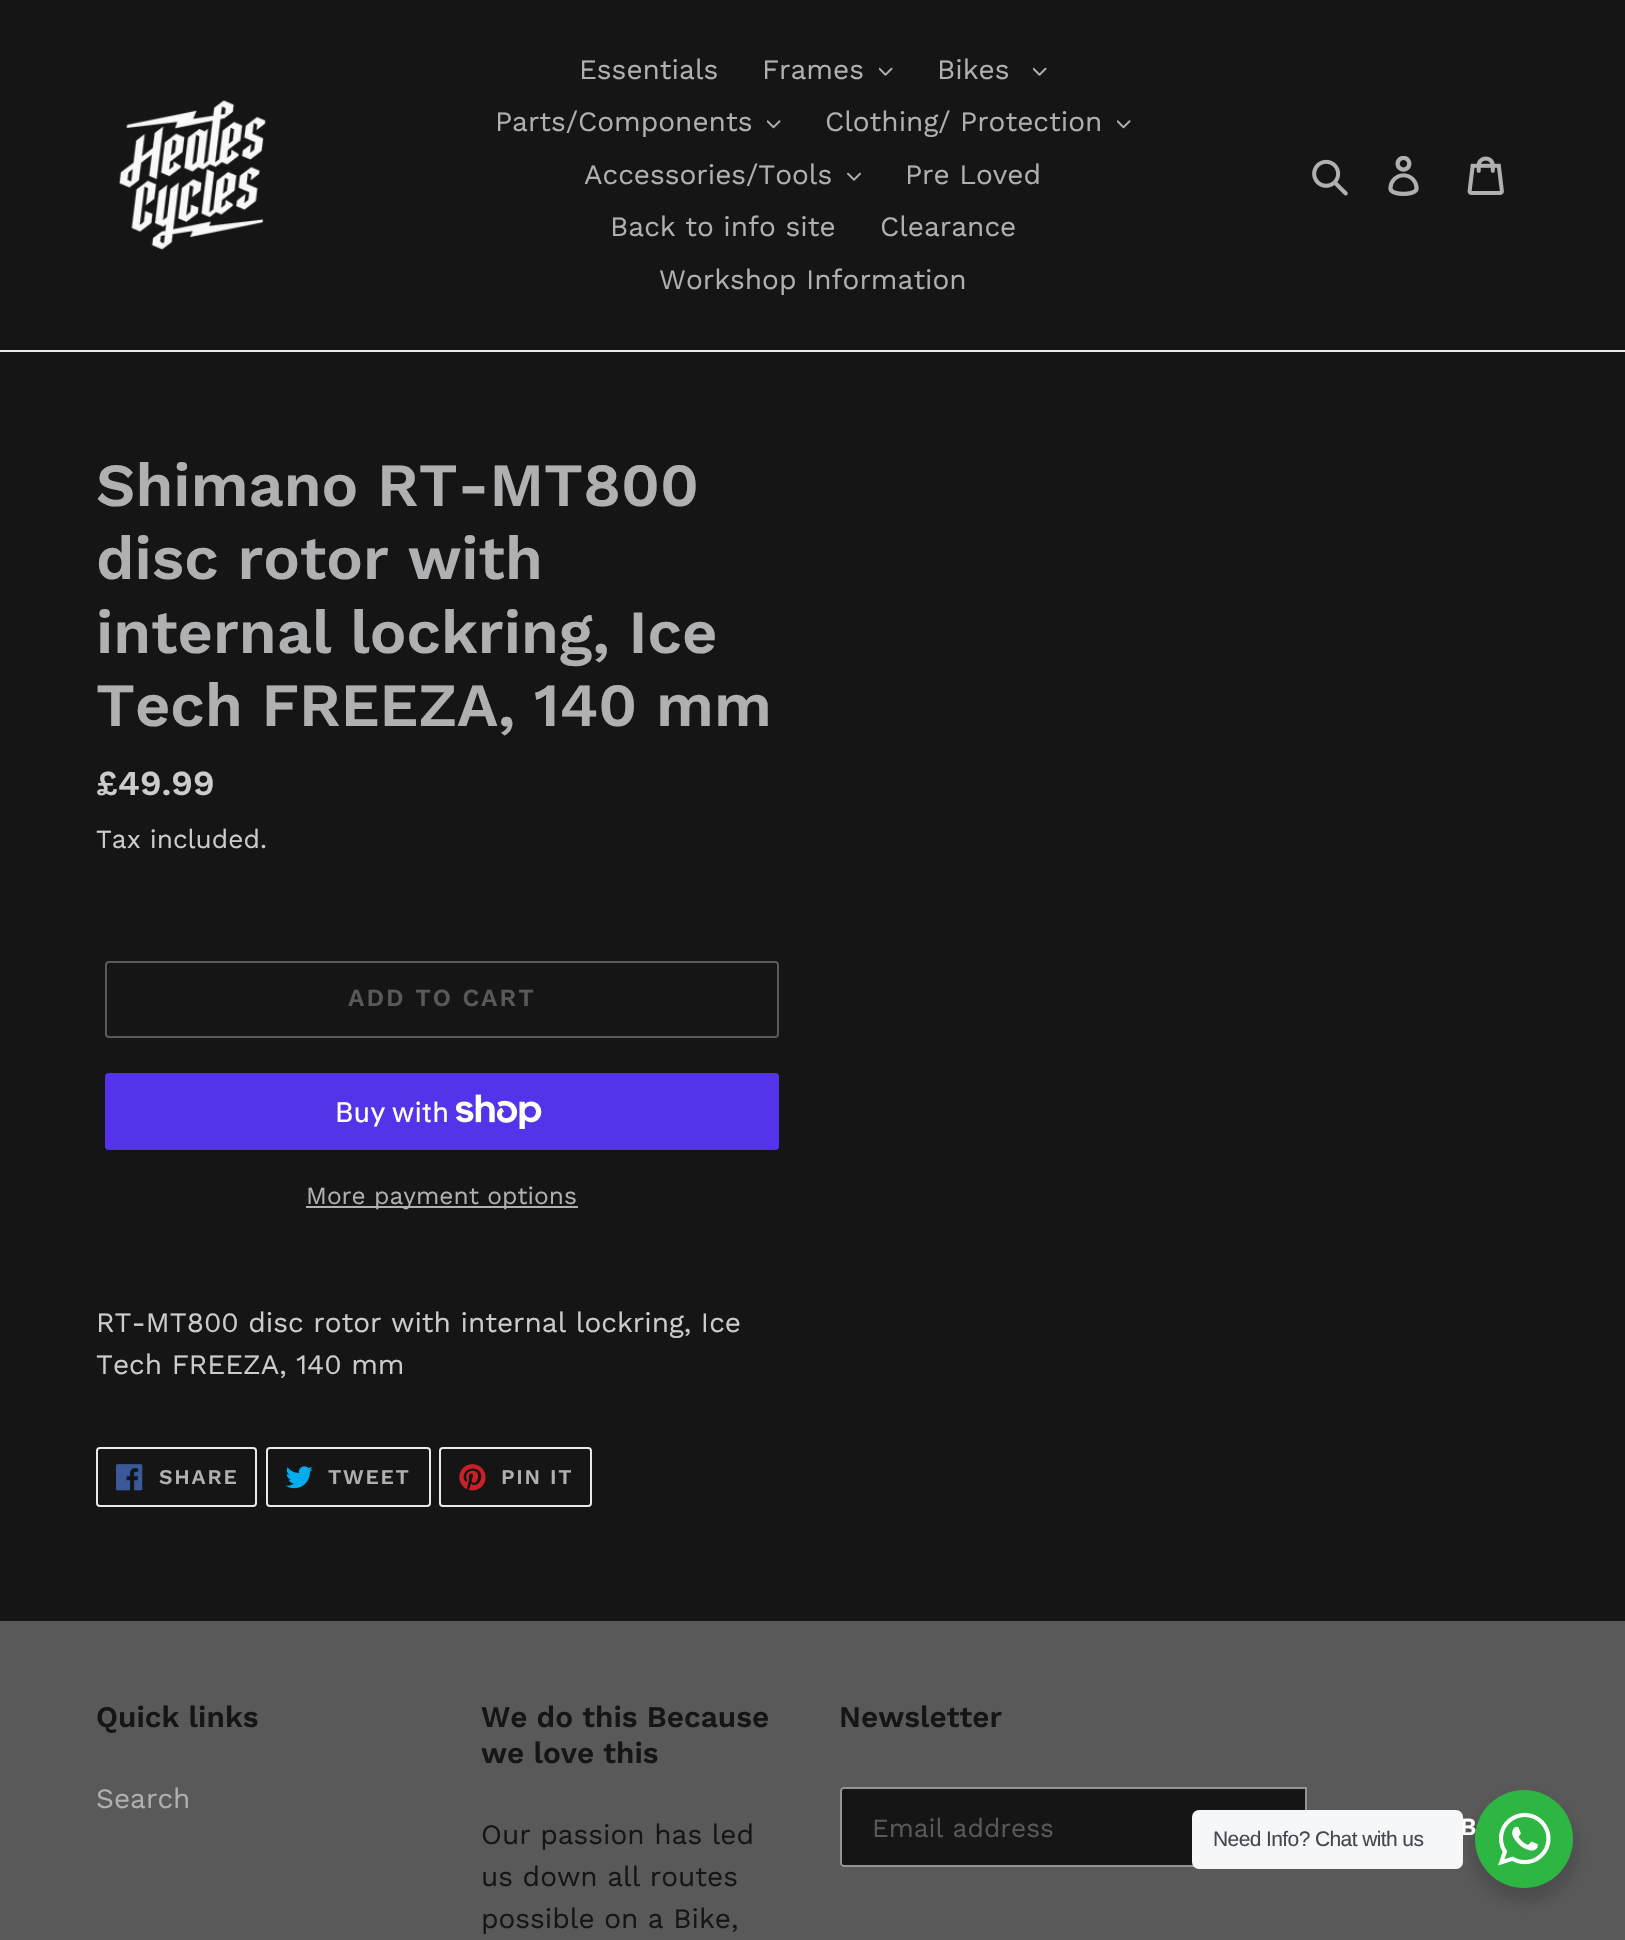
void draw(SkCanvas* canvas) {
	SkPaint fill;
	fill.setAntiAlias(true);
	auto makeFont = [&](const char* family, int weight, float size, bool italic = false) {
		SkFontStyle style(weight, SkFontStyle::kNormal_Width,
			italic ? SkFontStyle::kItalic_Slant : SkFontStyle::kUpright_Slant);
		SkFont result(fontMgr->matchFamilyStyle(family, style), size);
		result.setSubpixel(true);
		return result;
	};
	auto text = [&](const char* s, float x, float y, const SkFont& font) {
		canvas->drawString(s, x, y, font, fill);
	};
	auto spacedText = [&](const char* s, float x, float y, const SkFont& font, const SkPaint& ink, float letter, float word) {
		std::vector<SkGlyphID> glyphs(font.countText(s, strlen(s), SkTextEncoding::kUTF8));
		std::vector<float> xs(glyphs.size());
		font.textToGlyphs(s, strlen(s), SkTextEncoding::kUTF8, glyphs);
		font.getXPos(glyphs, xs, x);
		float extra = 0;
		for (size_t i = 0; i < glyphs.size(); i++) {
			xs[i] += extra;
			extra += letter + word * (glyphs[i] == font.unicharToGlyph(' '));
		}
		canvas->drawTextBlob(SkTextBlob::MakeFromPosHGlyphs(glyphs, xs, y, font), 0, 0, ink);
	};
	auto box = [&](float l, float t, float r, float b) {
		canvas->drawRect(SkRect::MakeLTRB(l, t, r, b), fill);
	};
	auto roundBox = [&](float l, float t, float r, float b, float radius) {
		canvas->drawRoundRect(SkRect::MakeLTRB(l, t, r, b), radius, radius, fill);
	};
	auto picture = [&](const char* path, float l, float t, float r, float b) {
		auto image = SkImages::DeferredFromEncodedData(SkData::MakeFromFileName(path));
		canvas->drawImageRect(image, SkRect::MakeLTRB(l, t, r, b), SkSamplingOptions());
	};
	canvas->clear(0xFF151516);
	fill.setColor(0xFFE8E9EB);
	box(0, 350, 1625, 352);
	picture("image0.png", 118, 100, 266, 250);
	picture("image1.png", 879, 67, 893, 76);
	picture("image1.png", 1033, 67, 1047, 76);
	picture("image2.png", 767, 120, 781, 129);
	picture("image2.png", 1117, 120, 1131, 129);
	picture("image3.png", 847, 172, 861, 181);
	picture("image4.png", 1312, 159, 1348, 196);
	picture("image5.png", 1388, 156, 1419, 196);
	picture("image6.png", 1467, 156, 1504, 195);
	fill.setStyle(SkPaint::kStroke_Style);
	fill.setStrokeWidth(2);
	fill.setColor(0xFF595959);
	canvas->drawRoundRect(SkRect::MakeLTRB(106, 962, 778, 1037), 3, 3, fill);
	fill.setStyle(SkPaint::kFill_Style);
	fill.setColor(0xFF5433EB);
	roundBox(105, 1073, 779, 1150, 4);
	picture("image7.png", 456, 1094, 542, 1129);
	fill.setColor(0xFFAFB0B1);
	box(306, 1206, 578, 1208);
	fill.setStyle(SkPaint::kStroke_Style);
	fill.setColor(0xFFE8E9EB);
	canvas->drawRoundRect(SkRect::MakeLTRB(97, 1448, 256, 1506), 3, 3, fill);
	picture("image8.png", 116, 1464, 143, 1491);
	canvas->drawRoundRect(SkRect::MakeLTRB(267, 1448, 430, 1506), 3, 3, fill);
	picture("image9.png", 285, 1466, 313, 1489);
	canvas->drawRoundRect(SkRect::MakeLTRB(440, 1448, 591, 1506), 3, 3, fill);
	picture("image10.png", 459, 1464, 486, 1491);
	fill.setStyle(SkPaint::kFill_Style);
	fill.setColor(0xFF595959);
	box(0, 1621, 1625, 1940);
	fill.setColor(0xFF151516);
	canvas->drawPath(SkPathBuilder().moveTo(844, 1788).lineTo(1306, 1788).lineTo(1306, 1866).lineTo(844, 1866).cubicTo(842.5f, 1866, 841, 1864.5f, 841, 1863).lineTo(841, 1791).cubicTo(841, 1789.5f, 842.5f, 1788, 844, 1788).close().detach(), fill);
	fill.setStyle(SkPaint::kStroke_Style);
	fill.setColor(0xFF949494);
	canvas->drawPath(SkPathBuilder().moveTo(844, 1788).lineTo(1306, 1788).lineTo(1306, 1866).lineTo(844, 1866).cubicTo(842.5f, 1866, 841, 1864.5f, 841, 1863).lineTo(841, 1791).cubicTo(841, 1789.5f, 842.5f, 1788, 844, 1788).close().detach(), fill);
	fill.setStyle(SkPaint::kFill_Style);
	fill.setColor(0x24000000);
	fill.setMaskFilter(SkMaskFilter::MakeBlur(kNormal_SkBlurStyle, 7));
	canvas->drawRoundRect(SkRect::MakeLTRB(1472, 1797, 1577, 1902), 52.5f, 52.5f, fill);
	fill.setMaskFilter(nullptr);
	auto font1 = makeFont("Work Sans", 400, 28);
	fill.setColor(0xFFAFB0B1);
	text("Essentials", 579, 79, font1);
	text("Frames", 762, 79, font1);
	text("Bikes", 937, 79, font1);
	text("Parts/Components", 495, 131, font1);
	text("Clothing/ Protection", 825, 131, font1);
	text("Accessories/Tools", 584, 184, font1);
	text("Pre Loved", 905, 184, font1);
	text("Back to info site", 610, 236, font1);
	text("Clearance", 880, 236, font1);
	text("Workshop Information", 659, 289, font1);
	auto font2 = makeFont("Work Sans", 600, 61.25f);
	text("Shimano RT-MT800", 96, 506, font2);
	text("disc rotor with", 96, 579, font2);
	text("internal lockring, Ice", 96, 653, font2);
	text("Tech FREEZA, 140 mm", 96, 726, font2);
	auto font3 = makeFont("Work Sans", 600, 35);
	fill.setColor(0xFFCCCCCC);
	text("£49.99", 96, 795, font3);
	auto font4 = makeFont("Work Sans", 400, 26.25f);
	text("Tax included.", 96, 848, font4);
	auto font5 = makeFont("Work Sans", 600, 24.5f);
	fill.setColor(0xFF595959);
	spacedText("ADD TO CART", 348, 1006, font5, fill, 2, 0);
	auto font6 = makeFont("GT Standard", 400, 28);
	fill.setColor(0xFFFFFFFF);
	text("Buy with", 335, 1122, font6);
	auto font7 = makeFont("Work Sans", 400, 24.5f);
	fill.setColor(0xFFAFB0B1);
	text("More payment options", 306, 1204, font7);
	fill.setColor(0xFFCCCCCC);
	text("RT-MT800 disc rotor with internal lockring, Ice", 96, 1332, font1);
	text("Tech FREEZA, 140 mm", 96, 1374, font1);
	auto font8 = makeFont("Work Sans", 600, 21);
	fill.setColor(0xFFAFB0B1);
	spacedText("SHARE", 159, 1484, font8, fill, 1.75f, 0);
	spacedText("TWEET", 328, 1484, font8, fill, 1.75f, 0);
	spacedText("PIN IT", 501, 1484, font8, fill, 1.75f, 0);
	auto font9 = makeFont("Work Sans", 600, 29.75f);
	fill.setColor(0xFF151516);
	text("Quick links", 96, 1727, font9);
	fill.setColor(0xFFAFB0B1);
	text("Search", 96, 1808, font1);
	fill.setColor(0xFF151516);
	text("We do this Because", 481, 1727, font9);
	text("we love this", 481, 1763, font9);
	text("Our passion has led", 481, 1844, font1);
	text("us down all routes", 481, 1886, font1);
	text("possible on a Bike,", 481, 1928, font1);
	text("Newsletter", 839, 1727, font9);
	fill.setColor(0xFF595959);
	text("Email address", 872, 1837, font4);
	fill.setColor(0xFFFFFFFF);
	spacedText("B", 1460, 1835, font5, fill, 2, 0);
	fill.setColor(0xFFF5F7F9);
	roundBox(1192, 1810, 1463, 1869, 7);
	auto font10 = makeFont("Liberation Sans", 400, 21);
	fill.setColor(0xFF43474E);
	spacedText("Need Info? Chat with us", 1213, 1846, font10, fill, -0.6f, 0);
	fill.setColor(0xFF2DB742);
	canvas->drawCircle(1524, 1839, 49, fill);
	picture("image11.png", 1498, 1813, 1551, 1866);
}
